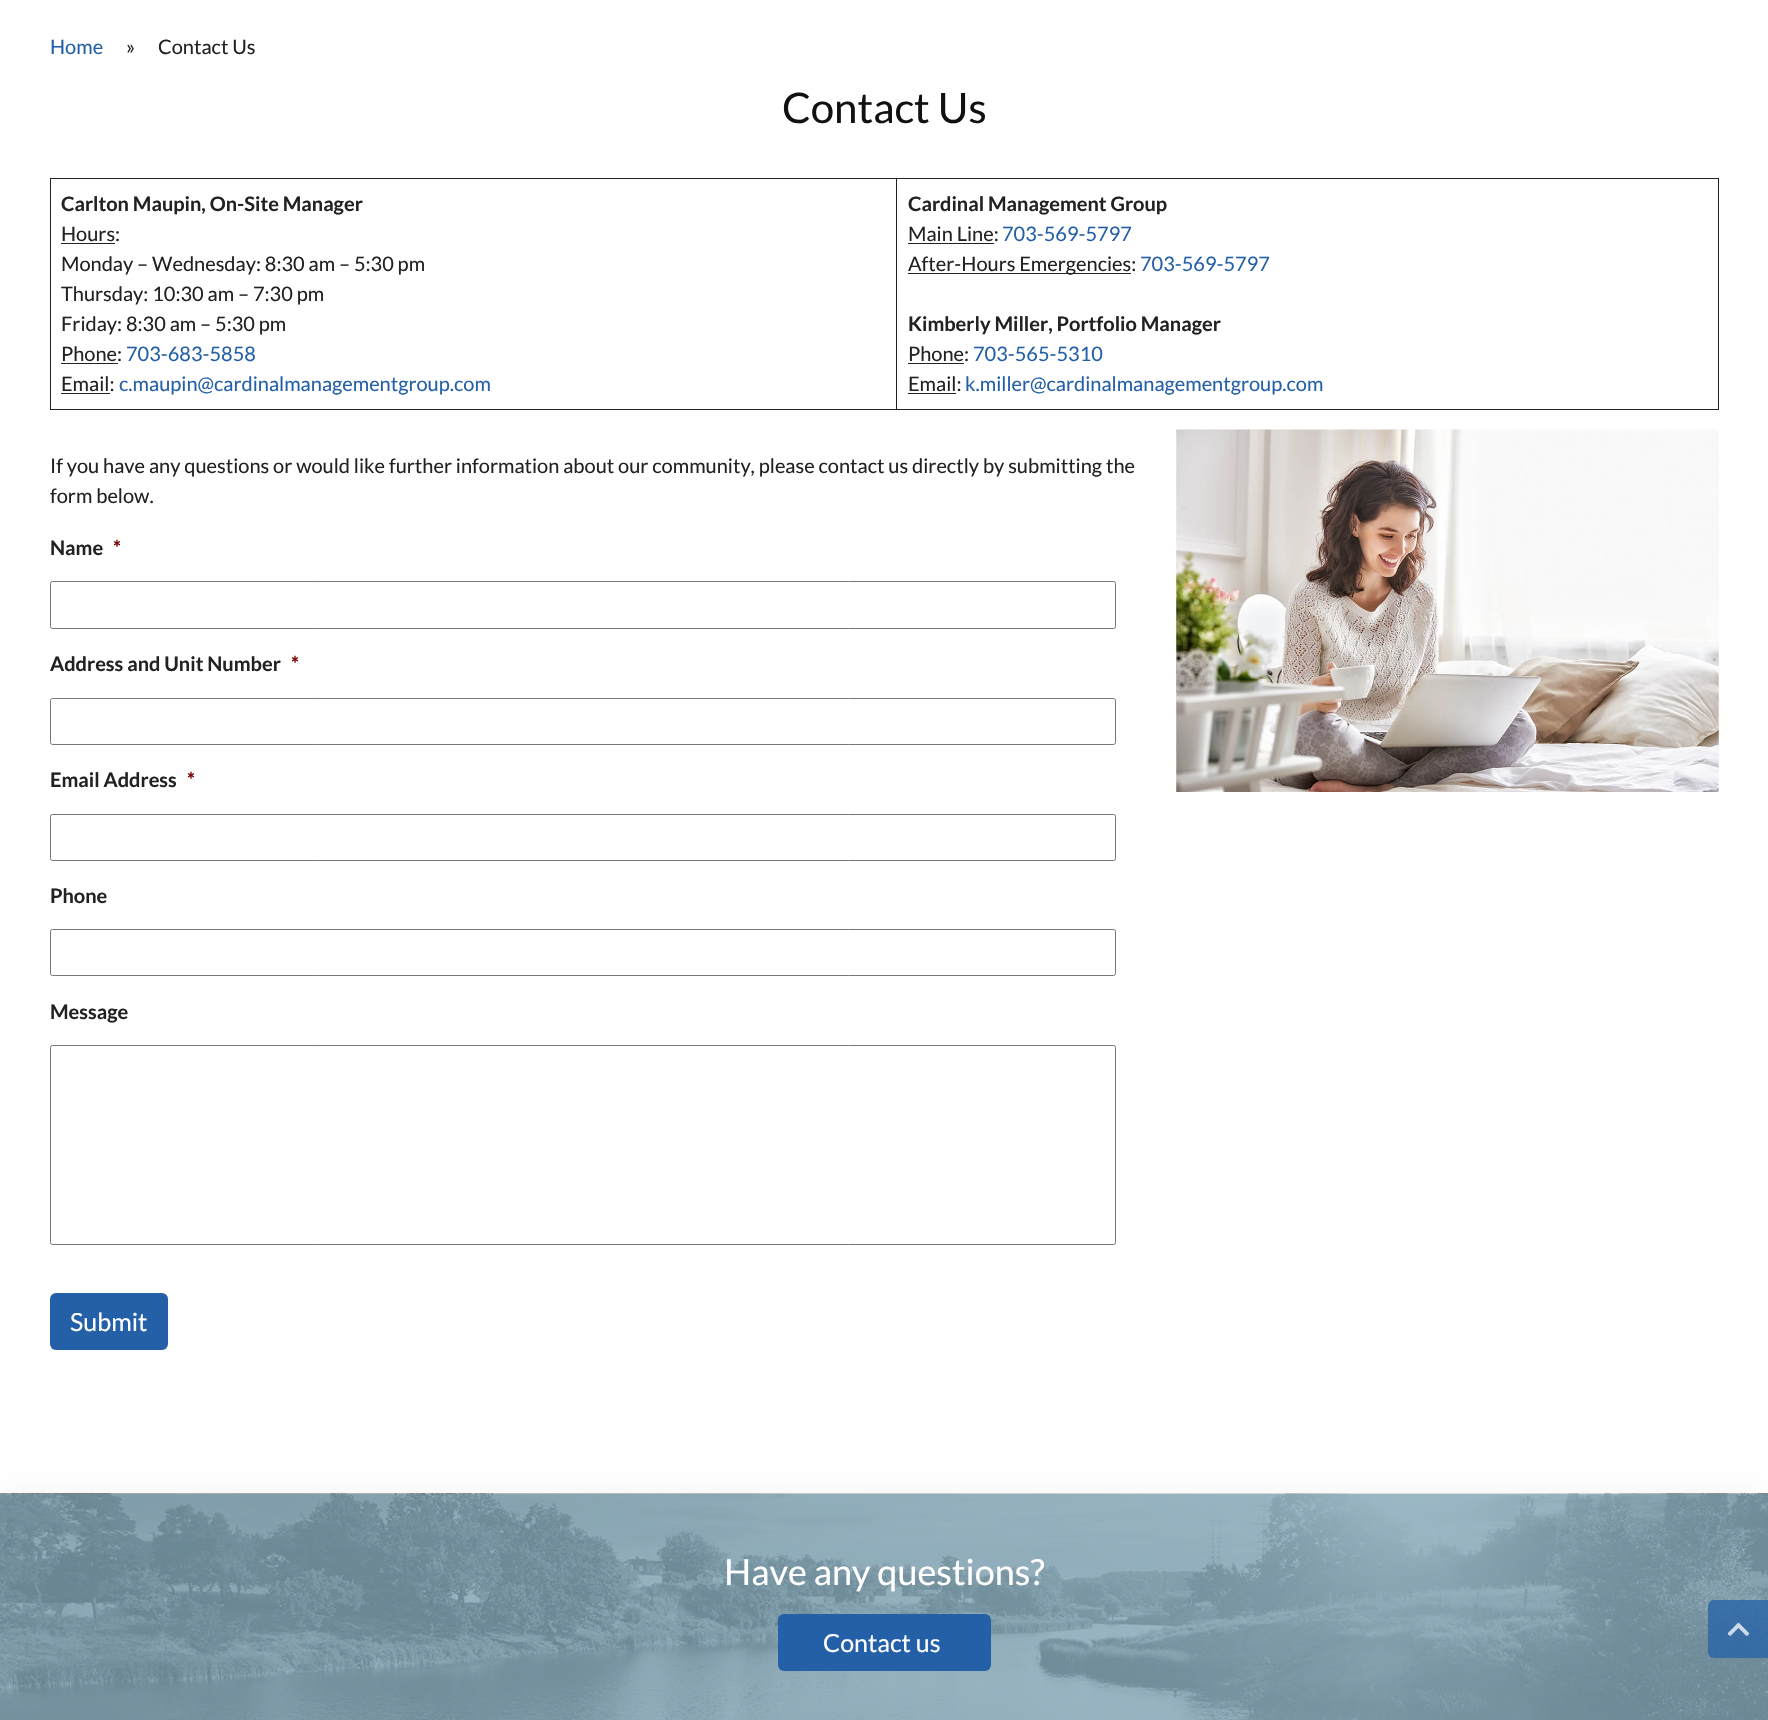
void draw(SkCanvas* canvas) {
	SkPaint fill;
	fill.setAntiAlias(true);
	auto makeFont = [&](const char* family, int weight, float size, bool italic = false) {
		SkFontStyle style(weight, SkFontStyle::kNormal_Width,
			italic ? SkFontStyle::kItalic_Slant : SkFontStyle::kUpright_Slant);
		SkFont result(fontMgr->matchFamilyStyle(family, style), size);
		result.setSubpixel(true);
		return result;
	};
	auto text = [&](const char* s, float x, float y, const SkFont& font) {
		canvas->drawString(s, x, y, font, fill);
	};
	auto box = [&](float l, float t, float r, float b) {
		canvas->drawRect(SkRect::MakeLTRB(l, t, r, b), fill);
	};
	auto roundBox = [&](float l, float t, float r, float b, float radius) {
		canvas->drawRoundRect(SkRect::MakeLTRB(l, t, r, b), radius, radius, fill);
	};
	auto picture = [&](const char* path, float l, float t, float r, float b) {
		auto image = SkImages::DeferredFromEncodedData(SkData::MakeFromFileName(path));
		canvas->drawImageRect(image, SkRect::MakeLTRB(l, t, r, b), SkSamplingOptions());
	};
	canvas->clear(0xFFFFFFFF);
	fill.setColor(0xFF222222);
	box(896, 178, 1719, 179);
	box(1718, 178, 1719, 410);
	box(896, 409, 1719, 410);
	box(896, 178, 897, 410);
	box(50, 178, 898, 179);
	box(50, 409, 898, 410);
	box(50, 178, 51, 410);
	box(61, 243, 115, 244);
	box(61, 363, 118, 364);
	box(61, 393, 110, 394);
	box(908, 243, 994, 244);
	box(908, 273, 1131, 274);
	box(908, 363, 964, 364);
	box(908, 393, 956, 394);
	fill.setStyle(SkPaint::kStroke_Style);
	fill.setStrokeWidth(1);
	fill.setColor(0xFF767676);
	canvas->drawRoundRect(SkRect::MakeLTRB(50.5f, 581.5f, 1115.5f, 628.5f), 2, 2, fill);
	canvas->drawRoundRect(SkRect::MakeLTRB(50.5f, 698.5f, 1115.5f, 744.5f), 2, 2, fill);
	canvas->drawRoundRect(SkRect::MakeLTRB(50.5f, 814.5f, 1115.5f, 860.5f), 2, 2, fill);
	canvas->drawRoundRect(SkRect::MakeLTRB(50.5f, 929.5f, 1115.5f, 975.5f), 2, 2, fill);
	canvas->drawRoundRect(SkRect::MakeLTRB(50.5f, 1045.5f, 1115.5f, 1244.5f), 2, 2, fill);
	fill.setStyle(SkPaint::kFill_Style);
	fill.setColor(0xFF2360A7);
	roundBox(50, 1293, 168, 1350, 6);
	picture("image0.png", 1176, 429, 1719, 792);
	fill.setColor(0x26000000);
	fill.setMaskFilter(SkMaskFilter::MakeBlur(kNormal_SkBlurStyle, 19));
	canvas->drawRect(SkRect::MakeLTRB(0, 1513, 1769, 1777), fill);
	fill.setMaskFilter(nullptr);
	picture("image1.png", 0, 1493, 1768, 1720);
	fill.setColor(0xFF2360A7);
	roundBox(778, 1614, 991, 1671, 6);
	fill.setColor(0xBF2360A7);
	canvas->drawPath(SkPathBuilder().moveTo(1714, 1600).lineTo(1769, 1600).lineTo(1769, 1658).lineTo(1714, 1658).cubicTo(1710.5f, 1658, 1708, 1655.5f, 1708, 1652).lineTo(1708, 1606).cubicTo(1708, 1602.5f, 1710.5f, 1600, 1714, 1600).close().detach(), fill);
	picture("image2.png", 1727, 1622, 1750, 1636);
	auto font1 = makeFont("Lato", 400, 20);
	fill.setColor(0xFF2360A7);
	text("Home", 50, 54, font1);
	fill.setColor(0xFF222222);
	text("»", 126, 54, font1);
	text("Contact Us", 158, 54, font1);
	auto font2 = makeFont("Lato", 400, 42);
	fill.setColor(0xFF111111);
	text("Contact Us", 782, 123, font2);
	auto font3 = makeFont("Lato", 700, 20);
	fill.setColor(0xFF222222);
	text("Carlton Maupin, On-Site Manager", 61, 211, font3);
	text("Hours:", 61, 241, font1);
	text("Monday – Wednesday: 8:30 am – 5:30 pm", 61, 271, font1);
	text("Thursday: 10:30 am – 7:30 pm", 61, 301, font1);
	text("Friday: 8:30 am – 5:30 pm", 61, 331, font1);
	text("Phone:", 61, 361, font1);
	fill.setColor(0xFF2360A7);
	text("703-683-5858", 126, 361, font1);
	fill.setColor(0xFF222222);
	text("Email:", 61, 391, font1);
	fill.setColor(0xFF2360A7);
	text("c.maupin@cardinalmanagementgroup.com", 119, 391, font1);
	fill.setColor(0xFF222222);
	text("Cardinal Management Group", 908, 211, font3);
	text("Main Line:", 908, 241, font1);
	fill.setColor(0xFF2360A7);
	text("703-569-5797", 1002, 241, font1);
	fill.setColor(0xFF222222);
	text("After-Hours Emergencies:", 908, 271, font1);
	fill.setColor(0xFF2360A7);
	text("703-569-5797", 1140, 271, font1);
	fill.setColor(0xFF222222);
	text("Kimberly Miller, Portfolio Manager", 908, 331, font3);
	text("Phone:", 908, 361, font1);
	fill.setColor(0xFF2360A7);
	text("703-565-5310", 973, 361, font1);
	fill.setColor(0xFF222222);
	text("Email:", 908, 391, font1);
	fill.setColor(0xFF2360A7);
	text("k.miller@cardinalmanagementgroup.com", 965, 391, font1);
	fill.setColor(0xFF222222);
	text("If you have any questions or would like further information about our community, please contact us directly by submitting the", 50, 473, font1);
	text("form below.", 50, 503, font1);
	text("Name", 50, 555, font3);
	fill.setColor(0xFF790000);
	text("*", 113, 555, font3);
	fill.setColor(0xFF222222);
	text("Address and Unit Number", 50, 671, font3);
	fill.setColor(0xFF790000);
	text("*", 291, 671, font3);
	fill.setColor(0xFF222222);
	text("Email Address", 50, 787, font3);
	fill.setColor(0xFF790000);
	text("*", 187, 787, font3);
	fill.setColor(0xFF222222);
	text("Phone", 50, 903, font3);
	text("Message", 50, 1019, font3);
	auto font4 = makeFont("Lato", 400, 25);
	fill.setColor(0xFFFFFFFF);
	text("Submit", 70, 1331, font4);
	auto font5 = makeFont("Lato", 400, 36);
	text("Have any questions?", 724, 1585, font5);
	text("Contact us", 823, 1652, font4);
}
